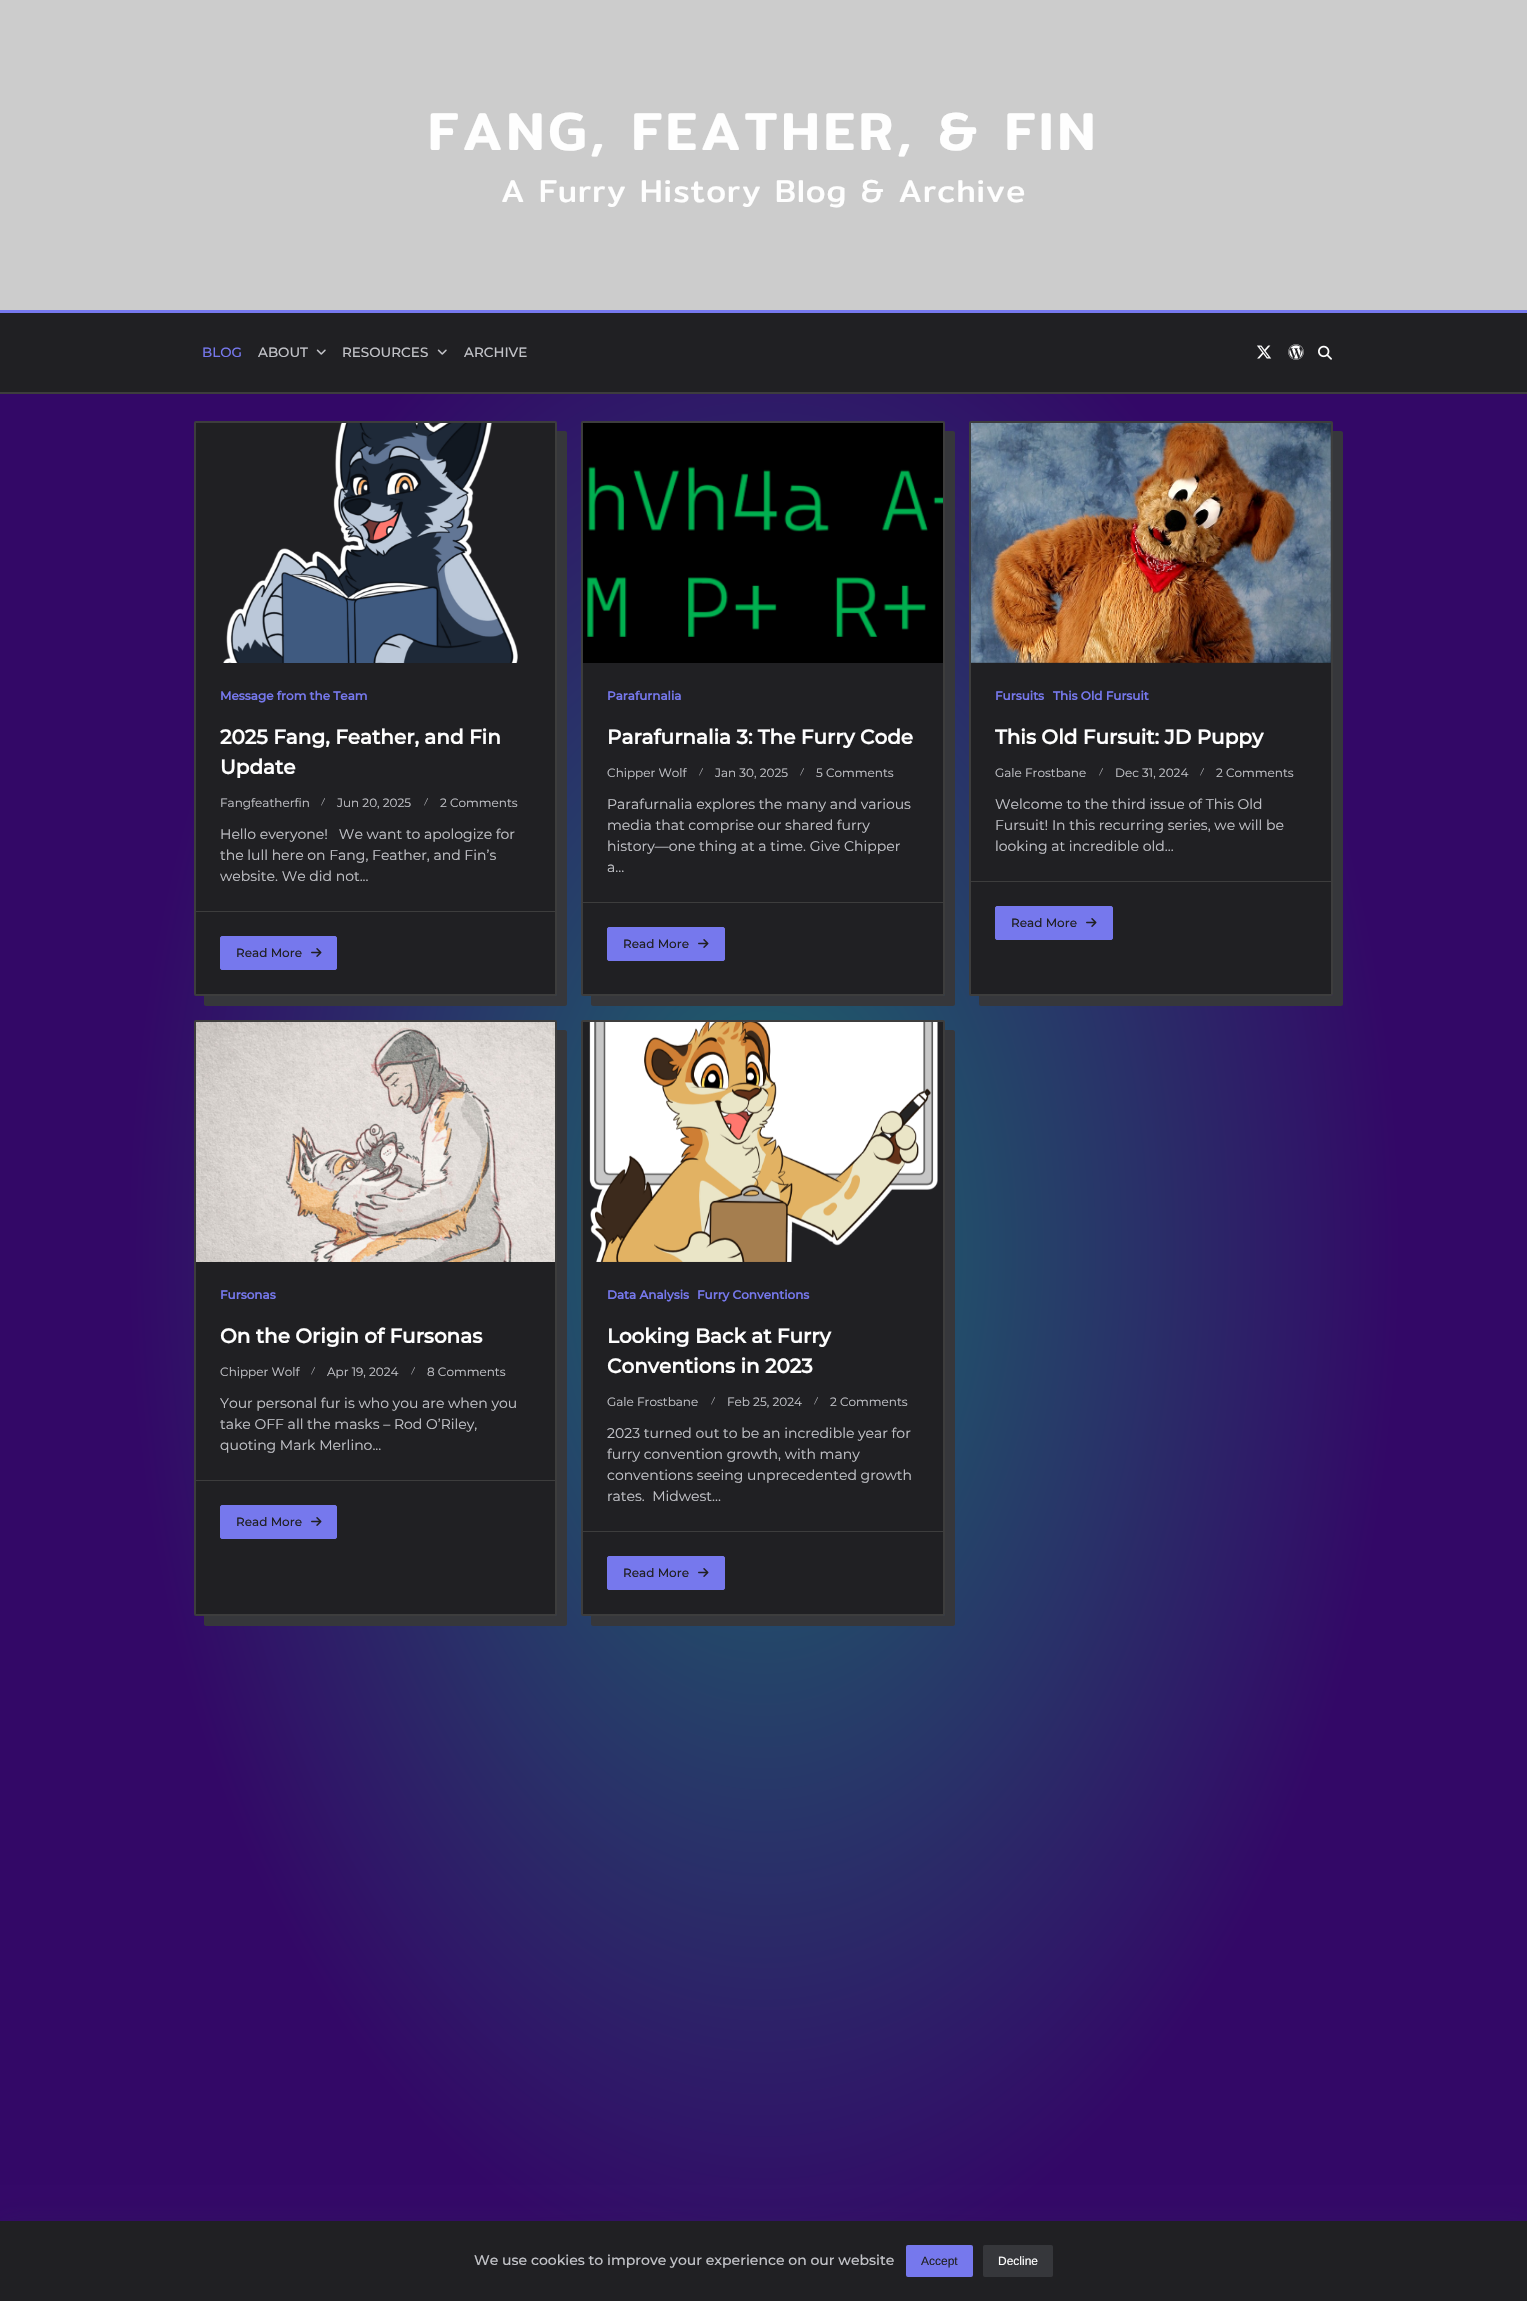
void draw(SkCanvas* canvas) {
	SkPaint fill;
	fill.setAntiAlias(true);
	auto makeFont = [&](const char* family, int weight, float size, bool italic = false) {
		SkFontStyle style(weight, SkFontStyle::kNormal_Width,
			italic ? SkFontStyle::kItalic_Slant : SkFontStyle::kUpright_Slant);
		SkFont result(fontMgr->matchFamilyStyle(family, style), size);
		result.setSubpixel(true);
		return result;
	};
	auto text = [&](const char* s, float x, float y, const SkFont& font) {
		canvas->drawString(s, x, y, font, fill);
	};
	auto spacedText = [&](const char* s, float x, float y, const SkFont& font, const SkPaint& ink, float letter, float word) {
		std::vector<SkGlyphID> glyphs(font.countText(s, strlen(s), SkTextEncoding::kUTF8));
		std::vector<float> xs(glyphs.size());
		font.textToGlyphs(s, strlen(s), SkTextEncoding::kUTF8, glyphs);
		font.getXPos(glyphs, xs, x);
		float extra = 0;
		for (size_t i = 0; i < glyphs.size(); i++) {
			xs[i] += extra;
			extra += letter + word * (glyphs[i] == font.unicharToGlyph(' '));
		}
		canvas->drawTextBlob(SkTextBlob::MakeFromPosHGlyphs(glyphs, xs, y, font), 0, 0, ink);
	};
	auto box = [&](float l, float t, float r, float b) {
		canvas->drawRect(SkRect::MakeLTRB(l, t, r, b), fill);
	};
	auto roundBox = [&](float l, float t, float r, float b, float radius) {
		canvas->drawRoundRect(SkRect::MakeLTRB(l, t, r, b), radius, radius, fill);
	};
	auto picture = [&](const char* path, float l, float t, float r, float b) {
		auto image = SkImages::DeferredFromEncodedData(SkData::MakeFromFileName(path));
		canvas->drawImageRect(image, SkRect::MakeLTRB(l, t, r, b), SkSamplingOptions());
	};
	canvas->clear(0xFFFFFFFF);
	{
		const SkColor colors[] = {0xFF1B6B6B, 0xFF330867};
		const float stops[] = {0, 0.59f};
		SkMatrix m = SkMatrix::Translate(764, 1248).preScale(1080, 1764);
		fill.setShader(SkGradientShader::MakeRadial({0, 0}, 1, colors, stops, 2, SkTileMode::kClamp, 0, &m));
		fill.setAlpha(255);
	}
	box(0, 394, 1527, 2221);
	fill.setShader(nullptr);
	fill.setColor(0xFFCCCCCC);
	box(0, 0, 1527, 310);
	fill.setColor(0xFF202023);
	box(0, 313, 1527, 392);
	fill.setColor(0xFF7678ED);
	box(0, 310, 1527, 313);
	fill.setColor(0xFF3D3D3D);
	box(0, 392, 1527, 394);
	picture("image0.png", 316, 349, 326, 355);
	picture("image0.png", 437, 349, 447, 355);
	picture("image1.png", 1257, 345, 1272, 359);
	picture("image2.png", 1288, 344, 1304, 360);
	picture("image3.png", 1318, 345, 1332, 360);
	fill.setColor(0xFF36373B);
	canvas->drawPath(SkPathBuilder().moveTo(204, 996).lineTo(204, 1004).cubicTo(204, 1005, 205, 1006, 206, 1006).lineTo(565, 1006).cubicTo(566, 1006, 567, 1005, 567, 1004).lineTo(567, 433).cubicTo(567, 432, 566, 431, 565, 431).lineTo(557, 431).lineTo(557, 994).cubicTo(557, 995, 556, 996, 555, 996).close().detach(), fill);
	fill.setColor(0xFF202023);
	canvas->drawRoundRect(SkRect::MakeLTRB(195, 422, 556, 995), 1, 1, fill);
	fill.setStyle(SkPaint::kStroke_Style);
	fill.setStrokeWidth(2);
	fill.setColor(0xFF3D3D3D);
	canvas->drawRoundRect(SkRect::MakeLTRB(195, 422, 556, 995), 1, 1, fill);
	picture("image4.png", 223, 423, 518, 663);
	fill.setStyle(SkPaint::kFill_Style);
	fill.setColor(0xFFC2C3C8);
	canvas->drawPath(SkPathBuilder().moveTo(321, 805.5f).lineTo(324.5f, 798).lineTo(325, 798.5f).lineTo(321.5f, 805.5f).close().detach(), fill);
	canvas->drawPath(SkPathBuilder().moveTo(424, 805.5f).lineTo(427.5f, 798).lineTo(428, 798.5f).lineTo(424.5f, 805.5f).close().detach(), fill);
	fill.setColor(0xFF3D3D3D);
	box(196, 911, 555, 912);
	fill.setColor(0xFF7678ED);
	canvas->drawRoundRect(SkRect::MakeLTRB(220.5f, 936.5f, 336.5f, 969.5f), 1.5f, 1.5f, fill);
	fill.setStyle(SkPaint::kStroke_Style);
	fill.setStrokeWidth(1);
	canvas->drawRoundRect(SkRect::MakeLTRB(220.5f, 936.5f, 336.5f, 969.5f), 1.5f, 1.5f, fill);
	picture("image5.png", 311, 948, 322, 957);
	fill.setStyle(SkPaint::kFill_Style);
	fill.setColor(0xFF36373B);
	canvas->drawPath(SkPathBuilder().moveTo(591, 996).lineTo(591, 1004).cubicTo(591, 1005, 592, 1006, 593, 1006).lineTo(953, 1006).cubicTo(954, 1006, 955, 1005, 955, 1004).lineTo(955, 433).cubicTo(955, 432, 954, 431, 953, 431).lineTo(945, 431).lineTo(945, 994).cubicTo(945, 995, 944, 996, 943, 996).close().detach(), fill);
	fill.setColor(0xFF202023);
	canvas->drawRoundRect(SkRect::MakeLTRB(582, 422, 944, 995), 1, 1, fill);
	fill.setStyle(SkPaint::kStroke_Style);
	fill.setStrokeWidth(2);
	fill.setColor(0xFF3D3D3D);
	canvas->drawRoundRect(SkRect::MakeLTRB(582, 422, 944, 995), 1, 1, fill);
	picture("image6.png", 583, 423, 943, 663);
	fill.setStyle(SkPaint::kFill_Style);
	fill.setColor(0xFFC2C3C8);
	canvas->drawPath(SkPathBuilder().moveTo(699, 775.5f).lineTo(702.5f, 768).lineTo(703, 768.5f).lineTo(699.5f, 775.5f).close().detach(), fill);
	canvas->drawPath(SkPathBuilder().moveTo(800, 775.5f).lineTo(803.5f, 768).lineTo(804, 768.5f).lineTo(800.5f, 775.5f).close().detach(), fill);
	fill.setColor(0xFF3D3D3D);
	box(583, 902, 943, 903);
	fill.setColor(0xFF7678ED);
	canvas->drawRoundRect(SkRect::MakeLTRB(607.5f, 927.5f, 724.5f, 960.5f), 1.5f, 1.5f, fill);
	fill.setStyle(SkPaint::kStroke_Style);
	fill.setStrokeWidth(1);
	canvas->drawRoundRect(SkRect::MakeLTRB(607.5f, 927.5f, 724.5f, 960.5f), 1.5f, 1.5f, fill);
	picture("image5.png", 698, 939, 709, 948);
	fill.setStyle(SkPaint::kFill_Style);
	fill.setColor(0xFF36373B);
	canvas->drawPath(SkPathBuilder().moveTo(979, 996).lineTo(979, 1004).cubicTo(979, 1005, 980, 1006, 981, 1006).lineTo(1341, 1006).cubicTo(1342, 1006, 1343, 1005, 1343, 1004).lineTo(1343, 433).cubicTo(1343, 432, 1342, 431, 1341, 431).lineTo(1333, 431).lineTo(1333, 994).cubicTo(1333, 995, 1332, 996, 1331, 996).close().detach(), fill);
	fill.setColor(0xFF202023);
	canvas->drawRoundRect(SkRect::MakeLTRB(970, 422, 1332, 995), 1, 1, fill);
	fill.setStyle(SkPaint::kStroke_Style);
	fill.setStrokeWidth(2);
	fill.setColor(0xFF3D3D3D);
	canvas->drawRoundRect(SkRect::MakeLTRB(970, 422, 1332, 995), 1, 1, fill);
	picture("image7.png", 971, 423, 1331, 663);
	fill.setStyle(SkPaint::kFill_Style);
	fill.setColor(0xFFC2C3C8);
	canvas->drawPath(SkPathBuilder().moveTo(1099, 775.5f).lineTo(1102.5f, 768).lineTo(1103, 768.5f).lineTo(1099.5f, 775.5f).close().detach(), fill);
	canvas->drawPath(SkPathBuilder().moveTo(1200, 775.5f).lineTo(1203.5f, 768).lineTo(1204, 768.5f).lineTo(1200.5f, 775.5f).close().detach(), fill);
	fill.setColor(0xFF3D3D3D);
	box(971, 881, 1331, 882);
	fill.setColor(0xFF7678ED);
	canvas->drawRoundRect(SkRect::MakeLTRB(995.5f, 906.5f, 1112.5f, 939.5f), 1.5f, 1.5f, fill);
	fill.setStyle(SkPaint::kStroke_Style);
	fill.setStrokeWidth(1);
	canvas->drawRoundRect(SkRect::MakeLTRB(995.5f, 906.5f, 1112.5f, 939.5f), 1.5f, 1.5f, fill);
	picture("image5.png", 1086, 918, 1097, 927);
	fill.setStyle(SkPaint::kFill_Style);
	fill.setColor(0xFF36373B);
	canvas->drawPath(SkPathBuilder().moveTo(204, 1616).lineTo(204, 1624).cubicTo(204, 1625, 205, 1626, 206, 1626).lineTo(565, 1626).cubicTo(566, 1626, 567, 1625, 567, 1624).lineTo(567, 1032).cubicTo(567, 1031, 566, 1030, 565, 1030).lineTo(557, 1030).lineTo(557, 1614).cubicTo(557, 1615, 556, 1616, 555, 1616).close().detach(), fill);
	fill.setColor(0xFF202023);
	canvas->drawRoundRect(SkRect::MakeLTRB(195, 1021, 556, 1615), 1, 1, fill);
	fill.setStyle(SkPaint::kStroke_Style);
	fill.setStrokeWidth(2);
	fill.setColor(0xFF3D3D3D);
	canvas->drawRoundRect(SkRect::MakeLTRB(195, 1021, 556, 1615), 1, 1, fill);
	picture("image8.png", 196, 1022, 555, 1262);
	fill.setStyle(SkPaint::kFill_Style);
	fill.setColor(0xFFC2C3C8);
	canvas->drawPath(SkPathBuilder().moveTo(311, 1374.5f).lineTo(314.5f, 1367).lineTo(315, 1367.5f).lineTo(311.5f, 1374.5f).close().detach(), fill);
	canvas->drawPath(SkPathBuilder().moveTo(411, 1374.5f).lineTo(414.5f, 1367).lineTo(415, 1367.5f).lineTo(411.5f, 1374.5f).close().detach(), fill);
	fill.setColor(0xFF3D3D3D);
	box(196, 1480, 555, 1481);
	fill.setColor(0xFF7678ED);
	canvas->drawRoundRect(SkRect::MakeLTRB(220.5f, 1505.5f, 336.5f, 1538.5f), 1.5f, 1.5f, fill);
	fill.setStyle(SkPaint::kStroke_Style);
	fill.setStrokeWidth(1);
	canvas->drawRoundRect(SkRect::MakeLTRB(220.5f, 1505.5f, 336.5f, 1538.5f), 1.5f, 1.5f, fill);
	picture("image5.png", 311, 1517, 322, 1526);
	fill.setStyle(SkPaint::kFill_Style);
	fill.setColor(0xFF36373B);
	canvas->drawPath(SkPathBuilder().moveTo(591, 1616).lineTo(591, 1624).cubicTo(591, 1625, 592, 1626, 593, 1626).lineTo(953, 1626).cubicTo(954, 1626, 955, 1625, 955, 1624).lineTo(955, 1032).cubicTo(955, 1031, 954, 1030, 953, 1030).lineTo(945, 1030).lineTo(945, 1614).cubicTo(945, 1615, 944, 1616, 943, 1616).close().detach(), fill);
	fill.setColor(0xFF202023);
	canvas->drawRoundRect(SkRect::MakeLTRB(582, 1021, 944, 1615), 1, 1, fill);
	fill.setStyle(SkPaint::kStroke_Style);
	fill.setStrokeWidth(2);
	fill.setColor(0xFF3D3D3D);
	canvas->drawRoundRect(SkRect::MakeLTRB(582, 1021, 944, 1615), 1, 1, fill);
	picture("image9.png", 589, 1022, 938, 1262);
	fill.setStyle(SkPaint::kFill_Style);
	fill.setColor(0xFFC2C3C8);
	canvas->drawPath(SkPathBuilder().moveTo(711, 1404.5f).lineTo(714.5f, 1397).lineTo(715, 1397.5f).lineTo(711.5f, 1404.5f).close().detach(), fill);
	canvas->drawPath(SkPathBuilder().moveTo(814, 1404.5f).lineTo(817.5f, 1397).lineTo(818, 1397.5f).lineTo(814.5f, 1404.5f).close().detach(), fill);
	fill.setColor(0xFF3D3D3D);
	box(583, 1531, 943, 1532);
	fill.setColor(0xFF7678ED);
	canvas->drawRoundRect(SkRect::MakeLTRB(607.5f, 1556.5f, 724.5f, 1589.5f), 1.5f, 1.5f, fill);
	fill.setStyle(SkPaint::kStroke_Style);
	fill.setStrokeWidth(1);
	canvas->drawRoundRect(SkRect::MakeLTRB(607.5f, 1556.5f, 724.5f, 1589.5f), 1.5f, 1.5f, fill);
	picture("image5.png", 698, 1568, 709, 1577);
	fill.setStyle(SkPaint::kFill_Style);
	fill.setColor(0x262C3E50);
	fill.setMaskFilter(SkMaskFilter::MakeBlur(kNormal_SkBlurStyle, 12));
	canvas->drawRect(SkRect::MakeLTRB(0, 2221, 1527, 2301), fill);
	fill.setMaskFilter(nullptr);
	fill.setColor(0xFF202023);
	box(0, 2221, 1527, 2301);
	fill.setColor(0xFF7678ED);
	roundBox(906, 2245, 973, 2277, 2);
	fill.setColor(0xFF36373B);
	roundBox(983, 2245, 1053, 2277, 2);
	auto font1 = makeFont("Mitr", 500, 54);
	fill.setColor(0xFFFEFEFE);
	spacedText("FANG, FEATHER, & FIN", 428, 150, font1, fill, 4, 0);
	auto font2 = makeFont("Mitr", 400, 32);
	spacedText("A Furry History Blog & Archive", 501, 202, font2, fill, 1, 0);
	auto font3 = makeFont("Montserrat", 500, 13.5f);
	fill.setColor(0xFF7678ED);
	text("BLOG", 202, 357, font3);
	fill.setColor(0xFFC2C3C8);
	text("ABOUT", 258, 357, font3);
	text("RESOURCES", 342, 357, font3);
	text("ARCHIVE", 464, 357, font3);
	auto font4 = makeFont("Montserrat", 700, 12);
	fill.setColor(0xFF7678ED);
	text("Message from the Team", 220, 700, font4);
	auto font5 = makeFont("Montserrat", 700, 20);
	fill.setColor(0xFFFEFEFE);
	text("2025 Fang, Feather, and Fin", 220, 744, font5);
	text("Update", 220, 774, font5);
	auto font6 = makeFont("Montserrat", 400, 12);
	fill.setColor(0xFFC2C3C8);
	text("Fangfeatherfin", 220, 807, font6);
	text("Jun 20, 2025", 337, 807, font6);
	text("2 Comments", 440, 807, font6);
	auto font7 = makeFont("Montserrat", 400, 14);
	text("Hello everyone!   We want to apologize for", 220, 839, font7);
	text("the lull here on Fang, Feather, and Fin’s", 220, 860, font7);
	text("website. We did not...", 220, 881, font7);
	auto font8 = makeFont("Montserrat", 500, 12);
	fill.setColor(0xFF202023);
	text("Read More", 236, 957, font8);
	fill.setColor(0xFF7678ED);
	text("Parafurnalia", 607, 700, font4);
	fill.setColor(0xFFFEFEFE);
	text("Parafurnalia 3: The Furry Code", 607, 744, font5);
	fill.setColor(0xFFC2C3C8);
	text("Chipper Wolf", 607, 777, font6);
	text("Jan 30, 2025", 715, 777, font6);
	text("5 Comments", 816, 777, font6);
	text("Parafurnalia explores the many and various", 607, 809, font7);
	text("media that comprise our shared furry", 607, 830, font7);
	text("history—one thing at a time. Give Chipper", 607, 851, font7);
	text("a...", 607, 872, font7);
	fill.setColor(0xFF202023);
	text("Read More", 623, 948, font8);
	fill.setColor(0xFF7678ED);
	text("Fursuits", 995, 700, font4);
	text("This Old Fursuit", 1053, 700, font4);
	fill.setColor(0xFFFEFEFE);
	text("This Old Fursuit: JD Puppy", 995, 744, font5);
	fill.setColor(0xFFC2C3C8);
	text("Gale Frostbane", 995, 777, font6);
	text("Dec 31, 2024", 1115, 777, font6);
	text("2 Comments", 1216, 777, font6);
	text("Welcome to the third issue of This Old", 995, 809, font7);
	text("Fursuit! In this recurring series, we will be", 995, 830, font7);
	text("looking at incredible old...", 995, 851, font7);
	fill.setColor(0xFF202023);
	text("Read More", 1011, 927, font8);
	fill.setColor(0xFF7678ED);
	text("Fursonas", 220, 1299, font4);
	fill.setColor(0xFFFEFEFE);
	text("On the Origin of Fursonas", 220, 1343, font5);
	fill.setColor(0xFFC2C3C8);
	text("Chipper Wolf", 220, 1376, font6);
	text("Apr 19, 2024", 327, 1376, font6);
	text("8 Comments", 427, 1376, font6);
	text("Your personal fur is who you are when you", 220, 1408, font7);
	text("take OFF all the masks – Rod O’Riley,", 220, 1429, font7);
	text("quoting Mark Merlino...", 220, 1450, font7);
	fill.setColor(0xFF202023);
	text("Read More", 236, 1526, font8);
	fill.setColor(0xFF7678ED);
	text("Data Analysis", 607, 1299, font4);
	text("Furry Conventions", 697, 1299, font4);
	fill.setColor(0xFFFEFEFE);
	text("Looking Back at Furry", 607, 1343, font5);
	text("Conventions in 2023", 607, 1373, font5);
	fill.setColor(0xFFC2C3C8);
	text("Gale Frostbane", 607, 1406, font6);
	text("Feb 25, 2024", 727, 1406, font6);
	text("2 Comments", 830, 1406, font6);
	text("2023 turned out to be an incredible year for", 607, 1438, font7);
	text("furry convention growth, with many", 607, 1459, font7);
	text("conventions seeing unprecedented growth", 607, 1480, font7);
	text("rates.  Midwest...", 607, 1501, font7);
	fill.setColor(0xFF202023);
	text("Read More", 623, 1577, font8);
	auto font9 = makeFont("Montserrat", 500, 14);
	fill.setColor(0xFFC2C3C8);
	text("We use cookies to improve your experience on our website", 474, 2265, font9);
	auto font10 = makeFont("Liberation Sans", 400, 12);
	fill.setColor(0xFF202023);
	text("Accept", 921, 2265, font10);
	fill.setColor(0xFFFEFEFE);
	text("Decline", 998, 2265, font10);
}
